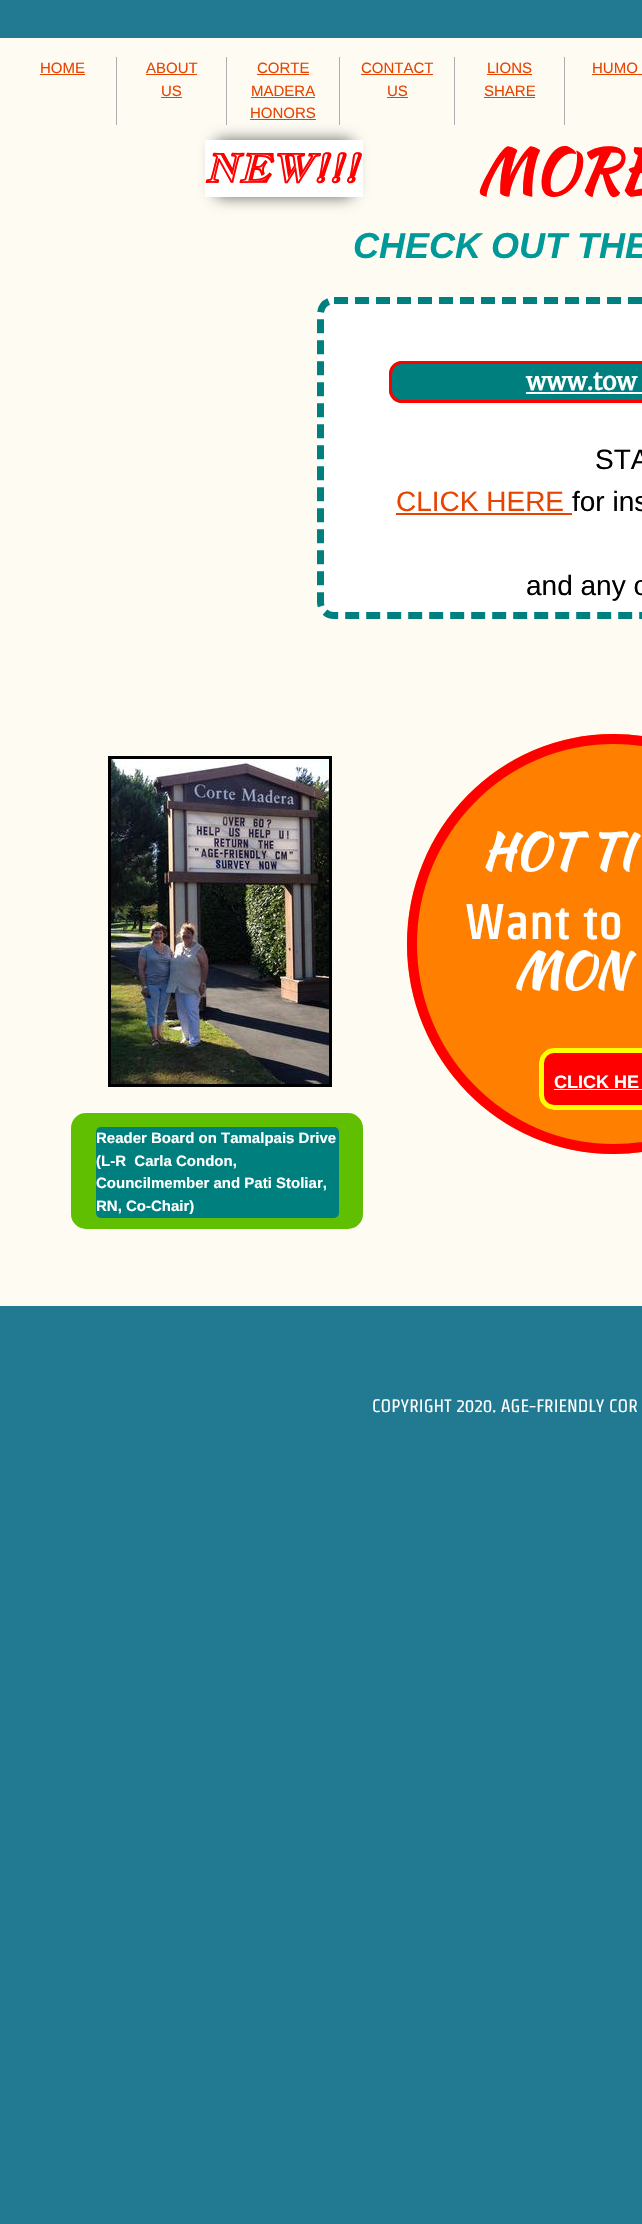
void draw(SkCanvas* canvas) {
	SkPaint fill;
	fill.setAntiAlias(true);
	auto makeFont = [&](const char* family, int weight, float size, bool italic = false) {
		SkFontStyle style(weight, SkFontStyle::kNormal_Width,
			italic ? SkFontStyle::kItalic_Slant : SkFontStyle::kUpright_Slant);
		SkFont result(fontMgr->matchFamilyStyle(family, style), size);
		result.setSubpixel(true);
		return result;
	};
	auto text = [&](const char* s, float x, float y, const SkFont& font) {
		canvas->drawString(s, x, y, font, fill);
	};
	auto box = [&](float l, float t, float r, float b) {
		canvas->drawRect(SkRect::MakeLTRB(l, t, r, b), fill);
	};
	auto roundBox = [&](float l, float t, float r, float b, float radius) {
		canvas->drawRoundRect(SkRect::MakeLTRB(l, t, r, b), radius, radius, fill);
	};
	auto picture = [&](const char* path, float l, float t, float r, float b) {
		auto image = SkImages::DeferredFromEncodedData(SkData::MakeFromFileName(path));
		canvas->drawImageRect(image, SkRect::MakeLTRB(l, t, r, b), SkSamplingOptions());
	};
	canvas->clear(0xFF217A92);
	fill.setColor(0xFFFDFBF2);
	box(0, 38, 642, 1306);
	fill.setColor(0xFFAEAEAE);
	box(116, 57, 117, 125);
	fill.setColor(0xFFE74402);
	box(40, 74, 85, 75);
	fill.setColor(0x99000000);
	fill.setMaskFilter(SkMaskFilter::MakeBlur(kNormal_SkBlurStyle, 7.5f));
	canvas->drawRoundRect(SkRect::MakeLTRB(215, 140, 353, 197), 7, 7, fill);
	fill.setMaskFilter(nullptr);
	fill.setColor(0xFFAEAEAE);
	box(226, 57, 227, 125);
	fill.setColor(0xFFE74402);
	box(146, 74, 197, 75);
	box(161, 97, 182, 98);
	fill.setColor(0xFFAEAEAE);
	box(339, 57, 340, 125);
	fill.setColor(0xFFE74402);
	box(257, 74, 309, 75);
	box(251, 97, 315, 98);
	box(250, 119, 316, 120);
	fill.setColor(0xFFAEAEAE);
	box(454, 57, 455, 125);
	fill.setColor(0xFFE74402);
	box(361, 74, 433, 75);
	box(387, 97, 408, 98);
	fill.setColor(0xFFAEAEAE);
	box(564, 57, 565, 125);
	fill.setColor(0xFFE74402);
	box(487, 74, 532, 75);
	box(484, 97, 535, 98);
	box(592, 74, 642, 75);
	fill.setColor(0xFFFFFFFF);
	roundBox(205, 140, 363, 197, 1);
	canvas->drawPath(SkPathBuilder().moveTo(334, 297).lineTo(642, 297).lineTo(642, 619).lineTo(334, 619).cubicTo(324.5f, 619, 317, 611.5f, 317, 602).lineTo(317, 314).cubicTo(317, 304.5f, 324.5f, 297, 334, 297).close().detach(), fill);
	fill.setStyle(SkPaint::kStroke_Style);
	fill.setStrokeWidth(7);
	fill.setColor(0xFF007F7F);
	fill.setPathEffect(SkDashPathEffect::Make({{14, 7}}, 0));
	canvas->drawPath(SkPathBuilder().moveTo(334, 300.5f).lineTo(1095, 300.5f).cubicTo(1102.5f, 300.5f, 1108.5f, 306.5f, 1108.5f, 314).lineTo(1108.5f, 602).cubicTo(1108.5f, 609.5f, 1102.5f, 615.5f, 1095, 615.5f).lineTo(334, 615.5f).cubicTo(326.5f, 615.5f, 320.5f, 609.5f, 320.5f, 602).lineTo(320.5f, 314).cubicTo(320.5f, 306.5f, 326.5f, 300.5f, 334, 300.5f).close().detach(), fill);
	fill.setPathEffect(nullptr);
	fill.setStyle(SkPaint::kFill_Style);
	canvas->drawPath(SkPathBuilder().moveTo(402, 361).lineTo(642, 361).lineTo(642, 403).lineTo(402, 403).cubicTo(395, 403, 389, 397, 389, 390).lineTo(389, 374).cubicTo(389, 367, 395, 361, 402, 361).close().detach(), fill);
	fill.setStyle(SkPaint::kStroke_Style);
	fill.setStrokeWidth(3);
	fill.setColor(0xFFFF0000);
	canvas->drawRoundRect(SkRect::MakeLTRB(390.5f, 362.5f, 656.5f, 401.5f), 11.5f, 11.5f, fill);
	fill.setStyle(SkPaint::kFill_Style);
	fill.setColor(0xFFFFFFFF);
	box(526, 392, 642, 394);
	fill.setColor(0xFFE74402);
	box(396, 513, 572, 515);
	fill.setStyle(SkPaint::kStroke_Style);
	fill.setColor(0xFF000000);
	canvas->drawRect(SkRect::MakeLTRB(109.5f, 757.5f, 330.5f, 1085.5f), fill);
	picture("image0.png", 111, 759, 329, 1084);
	fill.setStyle(SkPaint::kFill_Style);
	fill.setColor(0xFFFF7F00);
	canvas->drawOval(SkRect::MakeLTRB(407, 734, 820, 1154), fill);
	fill.setStyle(SkPaint::kStroke_Style);
	fill.setStrokeWidth(10);
	fill.setColor(0xFFFF0000);
	canvas->drawPath(SkPathBuilder().moveTo(613.5f, 739).cubicTo(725, 739, 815, 831, 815, 944).cubicTo(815, 1057, 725, 1149, 613.5f, 1149).cubicTo(502, 1149, 412, 1057, 412, 944).cubicTo(412, 831, 502, 739, 613.5f, 739).close().detach(), fill);
	fill.setStyle(SkPaint::kFill_Style);
	canvas->drawPath(SkPathBuilder().moveTo(554, 1048).lineTo(642, 1048).lineTo(642, 1110).lineTo(554, 1110).cubicTo(545.5f, 1110, 539, 1103.5f, 539, 1095).lineTo(539, 1063).cubicTo(539, 1054.5f, 545.5f, 1048, 554, 1048).close().detach(), fill);
	fill.setStyle(SkPaint::kStroke_Style);
	fill.setStrokeWidth(5);
	fill.setColor(0xFFFFFF00);
	canvas->drawRoundRect(SkRect::MakeLTRB(541.5f, 1050.5f, 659.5f, 1107.5f), 12.5f, 12.5f, fill);
	fill.setStyle(SkPaint::kFill_Style);
	fill.setColor(0xFFFFFFFF);
	box(554, 1089, 642, 1090);
	fill.setColor(0xFF5FBF00);
	roundBox(71, 1113, 363, 1229, 15);
	fill.setColor(0xFF007F7F);
	roundBox(96, 1127, 339, 1218, 5);
	auto font1 = makeFont("Liberation Sans", 400, 15);
	fill.setColor(0xFFE74402);
	text("HOME", 40, 73, font1);
	text("ABOUT", 146, 73, font1);
	text("US", 161, 96, font1);
	text("CORTE", 257, 73, font1);
	text("MADERA", 251, 96, font1);
	text("HONORS", 250, 118, font1);
	text("CONTACT", 361, 73, font1);
	text("US", 387, 96, font1);
	text("LIONS", 487, 73, font1);
	text("SHARE", 484, 96, font1);
	text("HUMO", 592, 73, font1);
	auto font2 = makeFont("Jacques Francois Shadow", 700, 38, true);
	fill.setColor(0xFFFF0000);
	text("NEW!!!", 205, 182, font2);
	auto font3 = makeFont("Kaushan Script", 700, 60);
	text("MORE", 477, 192, font3);
	auto font4 = makeFont("Liberation Sans", 700, 36, true);
	fill.setColor(0xFF009999);
	text("CHECK OUT THE", 353, 258, font4);
	auto font5 = makeFont("Merriweather", 700, 24);
	fill.setColor(0xFFFFFFFF);
	text("www.tow", 526, 390, font5);
	auto font6 = makeFont("Liberation Sans", 400, 28);
	fill.setColor(0xFF000000);
	text("STA", 595, 469, font6);
	fill.setColor(0xFFE74402);
	text("CLICK HERE", 396, 511, font6);
	fill.setColor(0xFF000000);
	text("for ins", 572, 511, font6);
	text("and any o", 526, 595, font6);
	auto font7 = makeFont("Kaushan Script", 700, 48);
	fill.setColor(0xFFFFFFFF);
	text("HOT TI", 482, 868, font7);
	auto font8 = makeFont("Strait", 700, 48);
	text("Want to", 464, 939, font8);
	text("MON", 514, 987, font7);
	auto font9 = makeFont("Liberation Sans", 700, 18);
	text("CLICK HE", 554, 1088, font9);
	auto font10 = makeFont("Liberation Sans", 700, 15);
	text("Reader Board on Tamalpais Drive", 96, 1143, font10);
	text("(L-R  Carla Condon,", 96, 1166, font10);
	text("Councilmember and Pati Stoliar,", 96, 1188, font10);
	text("RN, Co-Chair)", 96, 1211, font10);
	auto font11 = makeFont("Strait", 400, 18);
	text("COPYRIGHT 2020. AGE-FRIENDLY COR", 372, 1412, font11);
}
